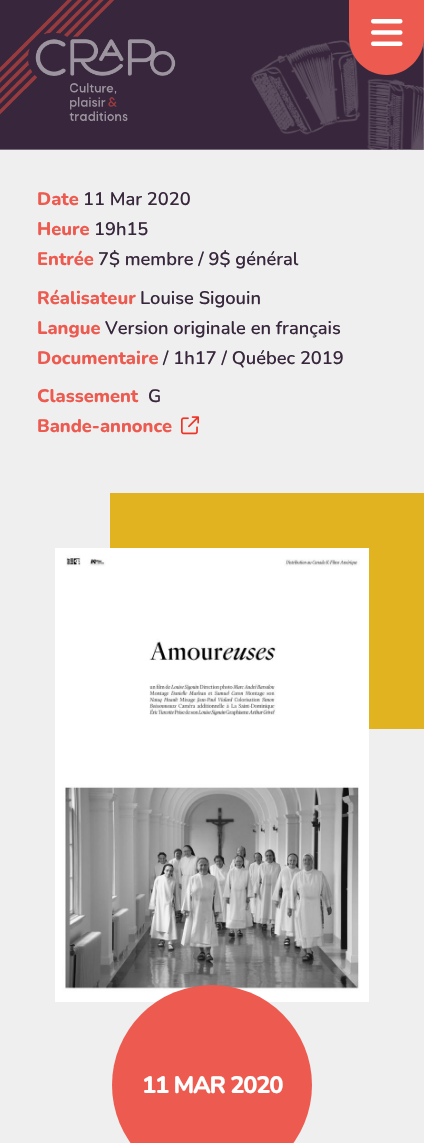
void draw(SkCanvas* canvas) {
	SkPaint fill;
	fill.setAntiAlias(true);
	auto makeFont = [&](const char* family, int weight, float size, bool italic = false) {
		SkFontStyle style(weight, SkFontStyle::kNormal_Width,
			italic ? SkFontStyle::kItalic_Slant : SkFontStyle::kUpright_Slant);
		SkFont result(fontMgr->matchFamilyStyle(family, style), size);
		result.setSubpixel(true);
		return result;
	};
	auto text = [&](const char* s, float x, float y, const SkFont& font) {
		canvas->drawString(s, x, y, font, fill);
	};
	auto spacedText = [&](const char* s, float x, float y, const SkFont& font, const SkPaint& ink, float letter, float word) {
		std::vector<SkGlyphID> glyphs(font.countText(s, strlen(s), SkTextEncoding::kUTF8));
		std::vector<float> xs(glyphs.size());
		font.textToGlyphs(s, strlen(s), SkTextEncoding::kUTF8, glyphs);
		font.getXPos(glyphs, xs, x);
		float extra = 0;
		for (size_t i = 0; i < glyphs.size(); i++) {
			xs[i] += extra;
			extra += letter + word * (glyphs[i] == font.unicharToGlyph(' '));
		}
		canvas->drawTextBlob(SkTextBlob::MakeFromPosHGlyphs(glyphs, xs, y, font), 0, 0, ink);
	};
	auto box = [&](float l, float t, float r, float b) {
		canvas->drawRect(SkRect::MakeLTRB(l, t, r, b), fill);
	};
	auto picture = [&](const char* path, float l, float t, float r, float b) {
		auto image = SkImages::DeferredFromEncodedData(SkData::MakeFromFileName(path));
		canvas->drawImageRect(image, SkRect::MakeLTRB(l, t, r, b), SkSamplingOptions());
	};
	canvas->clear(0xFFFFFFFF);
	fill.setColor(0xFFEFEFEF);
	box(0, 133, 424, 1143);
	picture("image0.png", 0, 0, 424, 150);
	picture("image1.png", 0, 0, 176, 121);
	fill.setColor(0xFFED5A4F);
	canvas->drawPath(SkPathBuilder().moveTo(349, 0).lineTo(424, 0).lineTo(424, 37.5f).cubicTo(424, 58, 407, 75, 386.5f, 75).cubicTo(366, 75, 349, 58, 349, 37.5f).close().detach(), fill);
	picture("image2.png", 371, 19, 403, 46);
	picture("image3.png", 181, 416, 199, 435);
	fill.setColor(0xFFE2B320);
	box(110, 493, 424, 729);
	picture("image4.png", 55, 548, 369, 1002);
	fill.setColor(0xFFED5A4F);
	canvas->drawCircle(212, 1085, 100, fill);
	auto font1 = makeFont("Nunito", 800, 18.25f);
	text("Date", 37, 205, font1);
	auto font2 = makeFont("Nunito", 600, 18.25f);
	fill.setColor(0xFF38273C);
	text("11 Mar 2020", 83, 205, font2);
	fill.setColor(0xFFED5A4F);
	text("Heure", 37, 235, font1);
	fill.setColor(0xFF38273C);
	text("19h15", 94, 235, font2);
	fill.setColor(0xFFED5A4F);
	text("Entrée", 37, 265, font1);
	fill.setColor(0xFF38273C);
	text("7$ membre / 9$ général", 98, 265, font2);
	fill.setColor(0xFFED5A4F);
	text("Réalisateur", 37, 304, font1);
	fill.setColor(0xFF38273C);
	text("Louise Sigouin", 140, 304, font2);
	fill.setColor(0xFFED5A4F);
	text("Langue", 37, 334, font1);
	fill.setColor(0xFF38273C);
	text("Version originale en français", 105, 334, font2);
	fill.setColor(0xFFED5A4F);
	text("Documentaire", 37, 364, font1);
	fill.setColor(0xFF38273C);
	text("/ 1h17 / Québec 2019", 163, 364, font2);
	fill.setColor(0xFFED5A4F);
	text("Classement", 37, 402, font1);
	auto font3 = makeFont("Nunito", 600, 18);
	fill.setColor(0xFF38273C);
	text("G", 148, 402, font3);
	fill.setColor(0xFFED5A4F);
	text("Bande-annonce", 37, 432, font1);
	auto font4 = makeFont("Nunito", 800, 23.75f);
	fill.setColor(0xFFFFFFFF);
	spacedText("11 MAR 2020", 142, 1093, font4, fill, -1.25f, 0);
}
